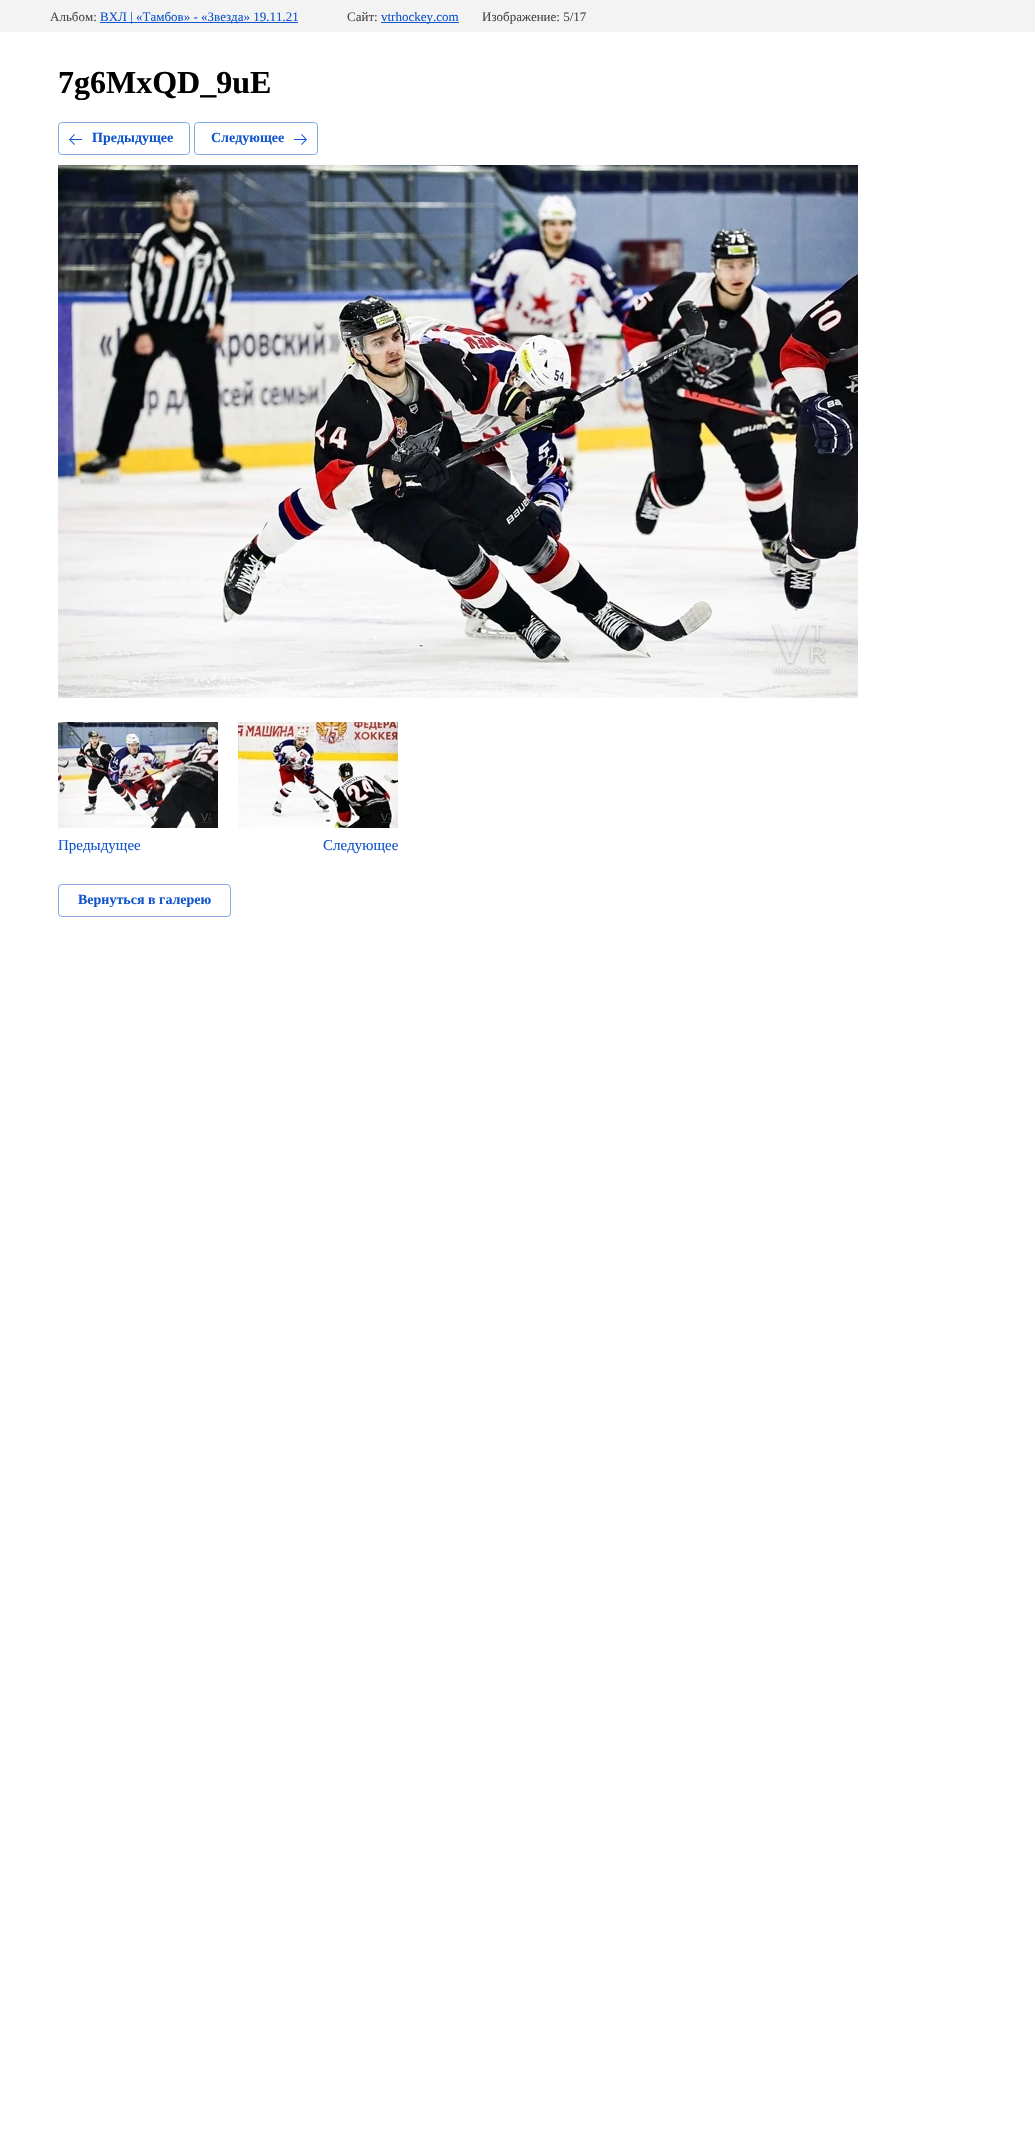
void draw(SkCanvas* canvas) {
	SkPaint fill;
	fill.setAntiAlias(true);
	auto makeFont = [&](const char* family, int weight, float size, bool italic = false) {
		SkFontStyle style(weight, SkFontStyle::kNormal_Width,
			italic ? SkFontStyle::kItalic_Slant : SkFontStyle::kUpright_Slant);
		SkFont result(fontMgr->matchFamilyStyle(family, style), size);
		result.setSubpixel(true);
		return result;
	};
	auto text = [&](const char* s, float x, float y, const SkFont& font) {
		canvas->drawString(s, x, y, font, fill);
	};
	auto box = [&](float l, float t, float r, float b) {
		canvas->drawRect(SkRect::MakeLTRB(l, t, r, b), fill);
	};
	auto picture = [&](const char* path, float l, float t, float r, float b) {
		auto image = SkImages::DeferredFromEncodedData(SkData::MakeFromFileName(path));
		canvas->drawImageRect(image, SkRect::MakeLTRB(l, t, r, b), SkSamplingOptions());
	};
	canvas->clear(0xFFFFFFFF);
	fill.setColor(0xFFF3F3F3);
	box(0, 0, 1035, 32);
	fill.setColor(0xFF1155CC);
	box(100, 22, 298, 23);
	box(381, 22, 459, 23);
	fill.setStyle(SkPaint::kStroke_Style);
	fill.setStrokeWidth(1);
	fill.setColor(0xFF88AAE6);
	canvas->drawRoundRect(SkRect::MakeLTRB(58.5f, 122.5f, 189.5f, 154.5f), 3.5f, 3.5f, fill);
	picture("image0.png", 69, 134, 82, 145);
	canvas->drawRoundRect(SkRect::MakeLTRB(194.5f, 122.5f, 317.5f, 154.5f), 3.5f, 3.5f, fill);
	picture("image1.png", 294, 134, 307, 145);
	picture("image2.png", 58, 165, 858, 698);
	picture("image3.png", 58, 722, 218, 828);
	picture("image4.png", 238, 722, 398, 828);
	canvas->drawRoundRect(SkRect::MakeLTRB(58.5f, 884.5f, 230.5f, 916.5f), 3.5f, 3.5f, fill);
	auto font1 = makeFont("Liberation Serif", 400, 13);
	fill.setStyle(SkPaint::kFill_Style);
	fill.setColor(0xFF484848);
	text("Альбом:", 50, 21, font1);
	fill.setColor(0xFF1155CC);
	text("ВХЛ | «Тамбов» - «Звезда» 19.11.21", 100, 21, font1);
	fill.setColor(0xFF484848);
	text("Сайт:", 347, 21, font1);
	fill.setColor(0xFF1155CC);
	text("vtrhockey.com", 381, 21, font1);
	fill.setColor(0xFF484848);
	text("Изображение: 5/17", 482, 21, font1);
	auto font2 = makeFont("Liberation Serif", 700, 32);
	fill.setColor(0xFF000000);
	text("7g6MxQD_9uE", 58, 93, font2);
	auto font3 = makeFont("Liberation Serif", 700, 14);
	fill.setColor(0xFF1155CC);
	text("Предыдущее", 92, 142, font3);
	text("Следующее", 211, 142, font3);
	auto font4 = makeFont("Liberation Serif", 400, 15);
	text("Предыдущее", 58, 850, font4);
	text("Следующее", 323, 850, font4);
	text("Вернуться в галерею", 78, 904, font3);
}
